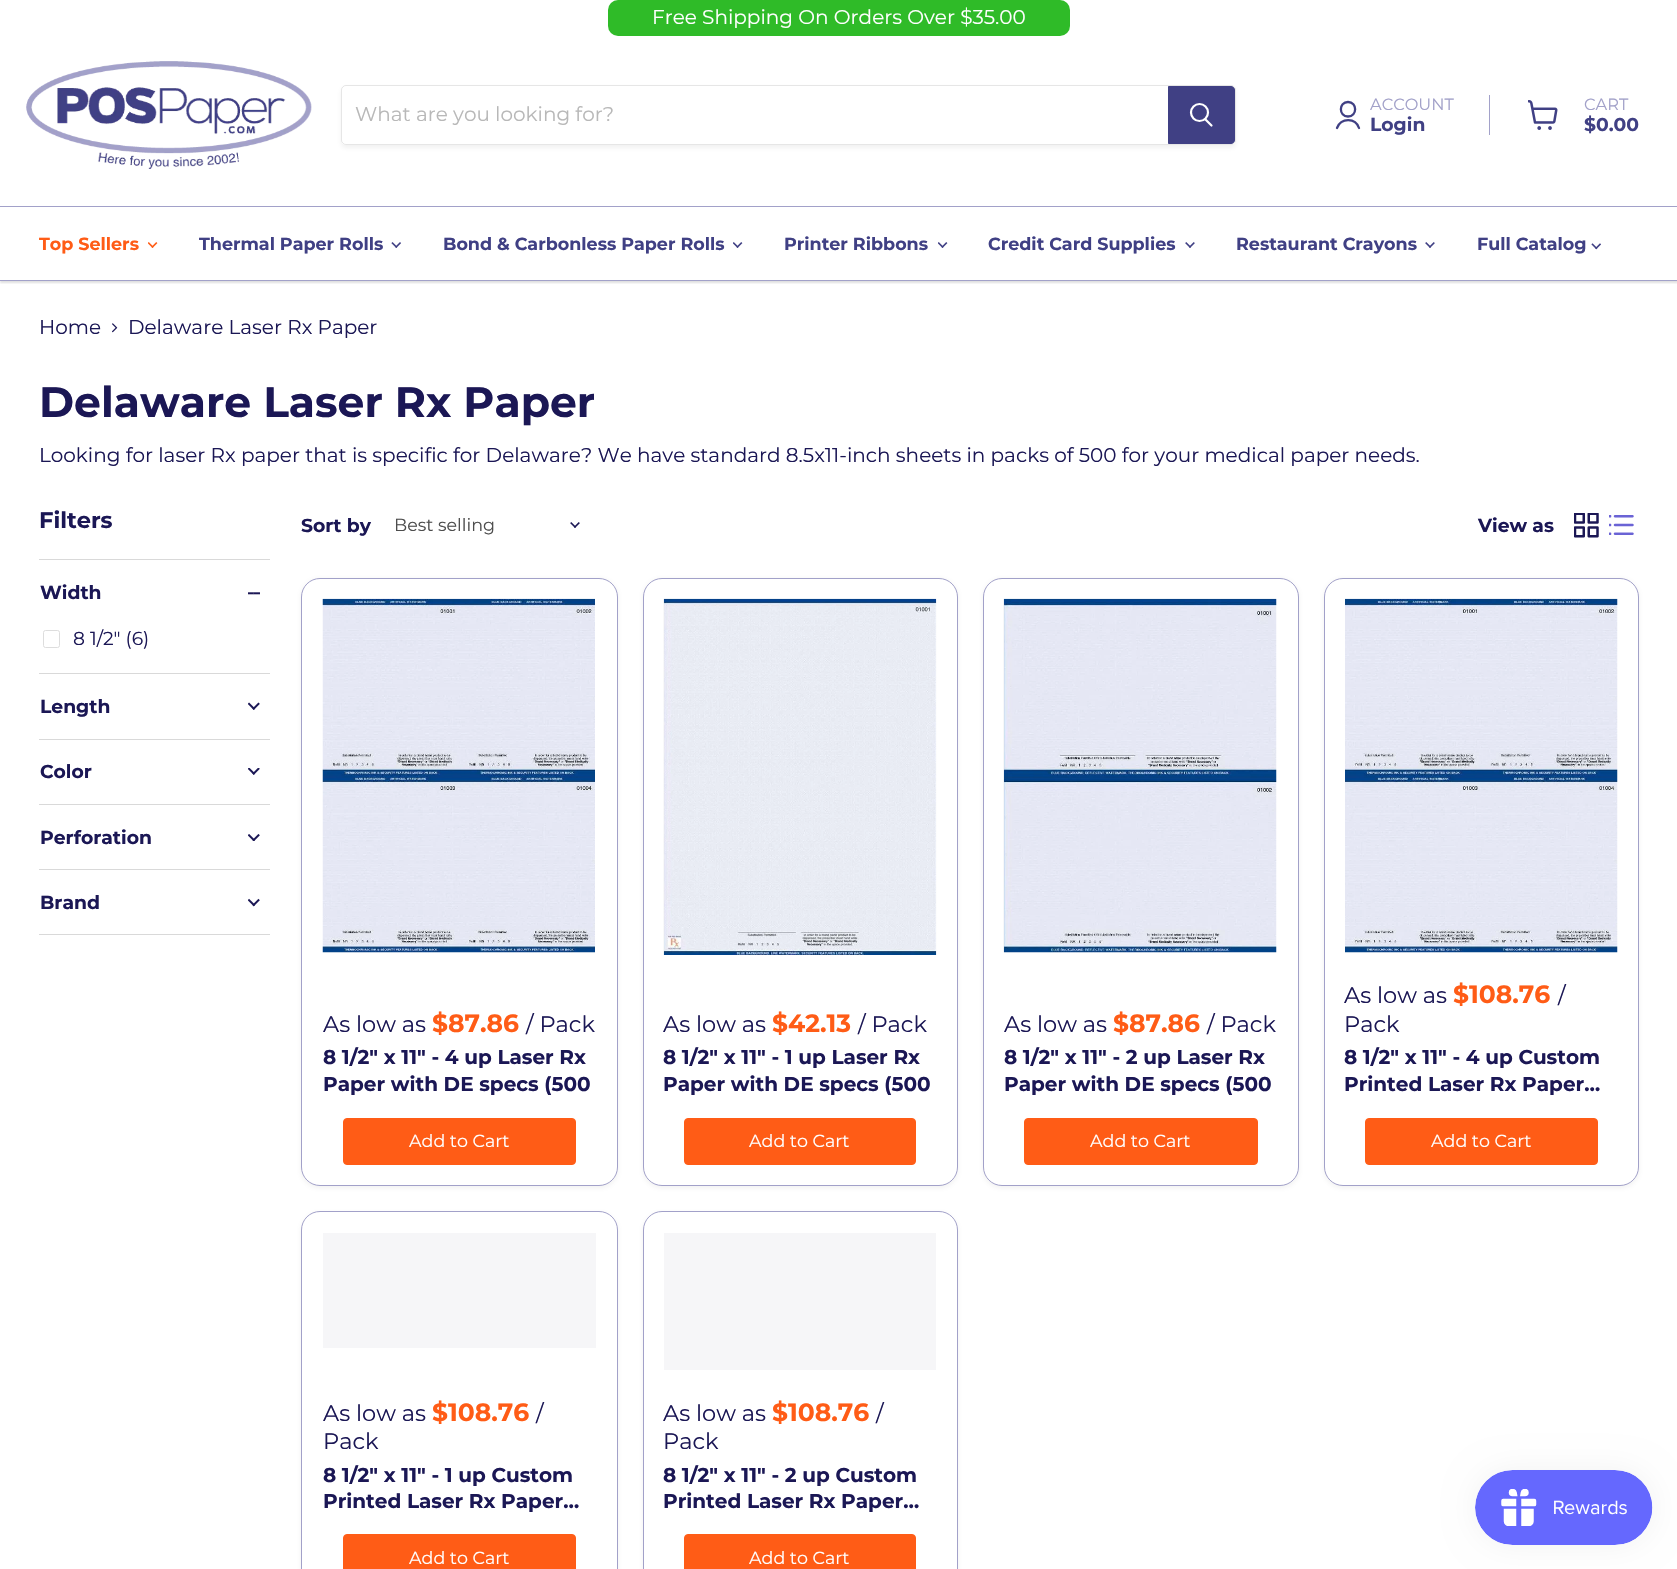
void draw(SkCanvas* canvas) {
	SkPaint fill;
	fill.setAntiAlias(true);
	auto makeFont = [&](const char* family, int weight, float size, bool italic = false) {
		SkFontStyle style(weight, SkFontStyle::kNormal_Width,
			italic ? SkFontStyle::kItalic_Slant : SkFontStyle::kUpright_Slant);
		SkFont result(fontMgr->matchFamilyStyle(family, style), size);
		result.setSubpixel(true);
		return result;
	};
	auto text = [&](const char* s, float x, float y, const SkFont& font) {
		canvas->drawString(s, x, y, font, fill);
	};
	auto box = [&](float l, float t, float r, float b) {
		canvas->drawRect(SkRect::MakeLTRB(l, t, r, b), fill);
	};
	auto roundBox = [&](float l, float t, float r, float b, float radius) {
		canvas->drawRoundRect(SkRect::MakeLTRB(l, t, r, b), radius, radius, fill);
	};
	auto picture = [&](const char* path, float l, float t, float r, float b) {
		auto image = SkImages::DeferredFromEncodedData(SkData::MakeFromFileName(path));
		canvas->drawImageRect(image, SkRect::MakeLTRB(l, t, r, b), SkSamplingOptions());
	};
	canvas->clear(0xFFFFFFFF);
	canvas->save();
	canvas->clipRect(SkRect::MakeLTRB(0, 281, 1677, 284));
	fill.setColor(0x40808080);
	fill.setMaskFilter(SkMaskFilter::MakeBlur(kNormal_SkBlurStyle, 1));
	canvas->drawRect(SkRect::MakeLTRB(0, 38, 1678, 283), fill);
	fill.setMaskFilter(nullptr);
	canvas->restore();
	fill.setColor(0xFF2FBB28);
	roundBox(608, 0, 1070, 36, 10);
	picture("image0.png", 26, 61, 312, 169);
	canvas->save();
	canvas->clipPath(SkPathBuilder(SkPathFillType::kEvenOdd).moveTo(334, 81).lineTo(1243, 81).lineTo(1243, 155).lineTo(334, 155).close().moveTo(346, 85).lineTo(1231, 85).cubicTo(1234, 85, 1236, 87, 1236, 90).lineTo(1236, 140).cubicTo(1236, 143, 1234, 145, 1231, 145).lineTo(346, 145).cubicTo(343, 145, 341, 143, 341, 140).lineTo(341, 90).cubicTo(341, 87, 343, 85, 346, 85).close().detach(), true);
	fill.setColor(0x1C808080);
	fill.setMaskFilter(SkMaskFilter::MakeBlur(kNormal_SkBlurStyle, 2));
	canvas->drawRoundRect(SkRect::MakeLTRB(341, 88, 1236, 148), 5, 5, fill);
	fill.setMaskFilter(nullptr);
	canvas->restore();
	fill.setStyle(SkPaint::kStroke_Style);
	fill.setStrokeWidth(1);
	fill.setColor(0x33808080);
	canvas->drawRoundRect(SkRect::MakeLTRB(341.5f, 85.5f, 1235.5f, 144.5f), 4.5f, 4.5f, fill);
	fill.setStyle(SkPaint::kFill_Style);
	fill.setColor(0xFF404084);
	canvas->drawPath(SkPathBuilder().moveTo(1168.5f, 86.5f).lineTo(1231, 86.5f).cubicTo(1233, 86.5f, 1234.5f, 88, 1234.5f, 90).lineTo(1234.5f, 140).cubicTo(1234.5f, 142, 1233, 143.5f, 1231, 143.5f).lineTo(1168.5f, 143.5f).close().detach(), fill);
	fill.setStyle(SkPaint::kStroke_Style);
	canvas->drawPath(SkPathBuilder().moveTo(1168.5f, 86.5f).lineTo(1231, 86.5f).cubicTo(1233, 86.5f, 1234.5f, 88, 1234.5f, 90).lineTo(1234.5f, 140).cubicTo(1234.5f, 142, 1233, 143.5f, 1231, 143.5f).lineTo(1168.5f, 143.5f).close().detach(), fill);
	fill.setStrokeWidth(2.2f);
	fill.setStrokeCap(SkPaint::kRound_Cap);
	fill.setColor(0xFFFFFFFF);
	canvas->drawPath(SkPathBuilder().moveTo(1211.5f, 125.5f).lineTo(1205.5f, 119.5f).detach(), fill);
	fill.setStrokeCap(SkPaint::kButt_Cap);
	canvas->drawCircle(1199.5f, 112.5f, 8.5f, fill);
	fill.setStyle(SkPaint::kFill_Style);
	fill.setColor(0xFFA2A1C9);
	box(1489, 95, 1490, 135);
	fill.setStyle(SkPaint::kStroke_Style);
	fill.setStrokeWidth(2.3f);
	fill.setStrokeCap(SkPaint::kRound_Cap);
	fill.setStrokeJoin(SkPaint::kRound_Join);
	fill.setColor(0xFF404084);
	canvas->drawPath(SkPathBuilder().moveTo(1348, 116.5f).cubicTo(1357.5f, 116.5f, 1357.5f, 102, 1348, 102).cubicTo(1338.5f, 102, 1338.5f, 116.5f, 1348, 116.5f).close().moveTo(1359, 128).cubicTo(1355.5f, 117.5f, 1341, 117.5f, 1337, 128).detach(), fill);
	picture("image1.png", 1528, 100, 1558, 130);
	fill.setStyle(SkPaint::kFill_Style);
	fill.setColor(0xFFA2A1C9);
	box(0, 206, 1677, 207);
	box(0, 280, 1677, 281);
	picture("image2.png", 148, 242, 158, 248);
	picture("image3.png", 391, 242, 401, 248);
	picture("image4.png", 733, 242, 743, 248);
	picture("image4.png", 938, 242, 948, 248);
	picture("image5.png", 1185, 242, 1195, 248);
	picture("image5.png", 1425, 242, 1435, 248);
	picture("image6.png", 1591, 243, 1601, 250);
	picture("image7.png", 112, 323, 118, 333);
	fill.setColor(0xFFD9D9D9);
	box(39, 559, 270, 560);
	picture("image8.png", 248, 592, 260, 595);
	fill.setStyle(SkPaint::kStroke_Style);
	fill.setStrokeWidth(1);
	fill.setStrokeCap(SkPaint::kButt_Cap);
	fill.setStrokeJoin(SkPaint::kMiter_Join);
	fill.setColor(0xFFDDDDDD);
	canvas->drawRoundRect(SkRect::MakeLTRB(43.5f, 630.5f, 59.5f, 647.5f), 2, 2, fill);
	fill.setStyle(SkPaint::kFill_Style);
	fill.setColor(0xFFD9D9D9);
	box(39, 673, 270, 674);
	picture("image9.png", 248, 702, 260, 710);
	box(39, 739, 270, 740);
	picture("image10.png", 248, 768, 260, 775);
	box(39, 804, 270, 805);
	picture("image11.png", 248, 834, 260, 841);
	box(39, 869, 270, 870);
	box(39, 934, 270, 935);
	picture("image12.png", 248, 898, 260, 907);
	picture("image13.png", 570, 522, 580, 528);
	picture("image14.png", 1574, 513, 1599, 538);
	picture("image15.png", 1609, 515, 1634, 535);
	fill.setColor(0x1C808080);
	fill.setMaskFilter(SkMaskFilter::MakeBlur(kNormal_SkBlurStyle, 2.5f));
	canvas->drawRoundRect(SkRect::MakeLTRB(301, 579, 618, 1188), 19, 19, fill);
	fill.setMaskFilter(nullptr);
	fill.setColor(0xFFFFFFFF);
	canvas->drawRoundRect(SkRect::MakeLTRB(301.5f, 578.5f, 617.5f, 1185.5f), 18.5f, 18.5f, fill);
	fill.setStyle(SkPaint::kStroke_Style);
	fill.setColor(0xFFA2A1C9);
	canvas->drawRoundRect(SkRect::MakeLTRB(301.5f, 578.5f, 617.5f, 1185.5f), 18.5f, 18.5f, fill);
	picture("image16.png", 322, 598, 595, 953);
	fill.setStyle(SkPaint::kFill_Style);
	fill.setColor(0xFFFF5C16);
	canvas->drawRoundRect(SkRect::MakeLTRB(343.5f, 1118.5f, 575.5f, 1164.5f), 3.5f, 3.5f, fill);
	fill.setStyle(SkPaint::kStroke_Style);
	canvas->drawRoundRect(SkRect::MakeLTRB(343.5f, 1118.5f, 575.5f, 1164.5f), 3.5f, 3.5f, fill);
	fill.setStyle(SkPaint::kFill_Style);
	fill.setColor(0x1C808080);
	fill.setMaskFilter(SkMaskFilter::MakeBlur(kNormal_SkBlurStyle, 2.5f));
	canvas->drawRoundRect(SkRect::MakeLTRB(643, 579, 958, 1188), 19, 19, fill);
	fill.setMaskFilter(nullptr);
	fill.setColor(0xFFFFFFFF);
	canvas->drawRoundRect(SkRect::MakeLTRB(643.5f, 578.5f, 957.5f, 1185.5f), 18.5f, 18.5f, fill);
	fill.setStyle(SkPaint::kStroke_Style);
	fill.setColor(0xFFA2A1C9);
	canvas->drawRoundRect(SkRect::MakeLTRB(643.5f, 578.5f, 957.5f, 1185.5f), 18.5f, 18.5f, fill);
	picture("image17.png", 663, 598, 937, 955);
	fill.setStyle(SkPaint::kFill_Style);
	fill.setColor(0xFFFF5C16);
	canvas->drawRoundRect(SkRect::MakeLTRB(684.5f, 1118.5f, 915.5f, 1164.5f), 3.5f, 3.5f, fill);
	fill.setStyle(SkPaint::kStroke_Style);
	canvas->drawRoundRect(SkRect::MakeLTRB(684.5f, 1118.5f, 915.5f, 1164.5f), 3.5f, 3.5f, fill);
	fill.setStyle(SkPaint::kFill_Style);
	fill.setColor(0x1C808080);
	fill.setMaskFilter(SkMaskFilter::MakeBlur(kNormal_SkBlurStyle, 2.5f));
	canvas->drawRoundRect(SkRect::MakeLTRB(983, 579, 1299, 1188), 19, 19, fill);
	fill.setMaskFilter(nullptr);
	fill.setColor(0xFFFFFFFF);
	canvas->drawRoundRect(SkRect::MakeLTRB(983.5f, 578.5f, 1298.5f, 1185.5f), 18.5f, 18.5f, fill);
	fill.setStyle(SkPaint::kStroke_Style);
	fill.setColor(0xFFA2A1C9);
	canvas->drawRoundRect(SkRect::MakeLTRB(983.5f, 578.5f, 1298.5f, 1185.5f), 18.5f, 18.5f, fill);
	picture("image18.png", 1003, 598, 1277, 953);
	fill.setStyle(SkPaint::kFill_Style);
	fill.setColor(0xFFFF5C16);
	canvas->drawRoundRect(SkRect::MakeLTRB(1024.5f, 1118.5f, 1257.5f, 1164.5f), 3.5f, 3.5f, fill);
	fill.setStyle(SkPaint::kStroke_Style);
	canvas->drawRoundRect(SkRect::MakeLTRB(1024.5f, 1118.5f, 1257.5f, 1164.5f), 3.5f, 3.5f, fill);
	fill.setStyle(SkPaint::kFill_Style);
	fill.setColor(0x1C808080);
	fill.setMaskFilter(SkMaskFilter::MakeBlur(kNormal_SkBlurStyle, 2.5f));
	canvas->drawRoundRect(SkRect::MakeLTRB(1324, 579, 1639, 1188), 19, 19, fill);
	fill.setMaskFilter(nullptr);
	fill.setColor(0xFFFFFFFF);
	canvas->drawRoundRect(SkRect::MakeLTRB(1324.5f, 578.5f, 1638.5f, 1185.5f), 18.5f, 18.5f, fill);
	fill.setStyle(SkPaint::kStroke_Style);
	fill.setColor(0xFFA2A1C9);
	canvas->drawRoundRect(SkRect::MakeLTRB(1324.5f, 578.5f, 1638.5f, 1185.5f), 18.5f, 18.5f, fill);
	picture("image19.png", 1345, 598, 1618, 953);
	fill.setStyle(SkPaint::kFill_Style);
	fill.setColor(0xFFFF5C16);
	canvas->drawRoundRect(SkRect::MakeLTRB(1365.5f, 1118.5f, 1597.5f, 1164.5f), 3.5f, 3.5f, fill);
	fill.setStyle(SkPaint::kStroke_Style);
	canvas->drawRoundRect(SkRect::MakeLTRB(1365.5f, 1118.5f, 1597.5f, 1164.5f), 3.5f, 3.5f, fill);
	fill.setStyle(SkPaint::kFill_Style);
	fill.setColor(0x1C808080);
	fill.setMaskFilter(SkMaskFilter::MakeBlur(kNormal_SkBlurStyle, 2.5f));
	canvas->drawRoundRect(SkRect::MakeLTRB(301, 1213, 618, 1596), 19, 19, fill);
	fill.setMaskFilter(nullptr);
	fill.setColor(0xFFFFFFFF);
	canvas->drawRoundRect(SkRect::MakeLTRB(301.5f, 1211.5f, 617.5f, 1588.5f), 18.5f, 18.5f, fill);
	fill.setStyle(SkPaint::kStroke_Style);
	fill.setColor(0xFFA2A1C9);
	canvas->drawRoundRect(SkRect::MakeLTRB(301.5f, 1211.5f, 617.5f, 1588.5f), 18.5f, 18.5f, fill);
	fill.setStyle(SkPaint::kFill_Style);
	fill.setColor(0xFFF6F6F8);
	box(323, 1233, 596, 1348);
	fill.setColor(0xFFFF5C16);
	canvas->drawRoundRect(SkRect::MakeLTRB(343.5f, 1534.5f, 575.5f, 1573.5f), 3.5f, 3.5f, fill);
	fill.setStyle(SkPaint::kStroke_Style);
	canvas->drawRoundRect(SkRect::MakeLTRB(343.5f, 1534.5f, 575.5f, 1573.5f), 3.5f, 3.5f, fill);
	fill.setStyle(SkPaint::kFill_Style);
	fill.setColor(0x1C808080);
	fill.setMaskFilter(SkMaskFilter::MakeBlur(kNormal_SkBlurStyle, 2.5f));
	canvas->drawRoundRect(SkRect::MakeLTRB(643, 1213, 958, 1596), 19, 19, fill);
	fill.setMaskFilter(nullptr);
	fill.setColor(0xFFFFFFFF);
	canvas->drawRoundRect(SkRect::MakeLTRB(643.5f, 1211.5f, 957.5f, 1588.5f), 18.5f, 18.5f, fill);
	fill.setStyle(SkPaint::kStroke_Style);
	fill.setColor(0xFFA2A1C9);
	canvas->drawRoundRect(SkRect::MakeLTRB(643.5f, 1211.5f, 957.5f, 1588.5f), 18.5f, 18.5f, fill);
	fill.setStyle(SkPaint::kFill_Style);
	fill.setColor(0xFFF6F6F8);
	box(664, 1233, 936, 1370);
	fill.setColor(0xFFFF5C16);
	canvas->drawRoundRect(SkRect::MakeLTRB(684.5f, 1534.5f, 915.5f, 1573.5f), 3.5f, 3.5f, fill);
	fill.setStyle(SkPaint::kStroke_Style);
	canvas->drawRoundRect(SkRect::MakeLTRB(684.5f, 1534.5f, 915.5f, 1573.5f), 3.5f, 3.5f, fill);
	fill.setStyle(SkPaint::kFill_Style);
	fill.setColor(0x0D000000);
	fill.setMaskFilter(SkMaskFilter::MakeBlur(kNormal_SkBlurStyle, 15.5f));
	canvas->drawRoundRect(SkRect::MakeLTRB(1475, 1470, 1653, 1545), 37.5f, 37.5f, fill);
	fill.setMaskFilter(nullptr);
	picture("image20.png", 1475, 1470, 1653, 1545);
	auto font1 = makeFont("Montserrat", 400, 20);
	fill.setColor(0xFFFFFFFF);
	text("Free Shipping On Orders Over $35.00", 652, 24, font1);
	fill.setColor(0xFFB8B8B8);
	text("What are you looking for?", 355, 121, font1);
	auto font2 = makeFont("Montserrat", 400, 16.25f);
	fill.setColor(0xFFA2A1C9);
	text("ACCOUNT", 1370, 110, font2);
	auto font3 = makeFont("Montserrat", 700, 18.75f);
	fill.setColor(0xFF404084);
	text("Login", 1370, 131, font3);
	fill.setColor(0xFFA2A1C9);
	text("CART", 1584, 110, font2);
	fill.setColor(0xFF404084);
	text("$0.00", 1584, 131, font3);
	auto font4 = makeFont("Montserrat", 700, 17.5f);
	fill.setColor(0xFFFF5C16);
	text("Top Sellers", 39, 250, font4);
	fill.setColor(0xFF404084);
	text("Thermal Paper Rolls", 199, 250, font4);
	text("Bond & Carbonless Paper Rolls", 443, 250, font4);
	text("Printer Ribbons", 784, 250, font4);
	text("Credit Card Supplies", 988, 250, font4);
	text("Restaurant Crayons", 1236, 250, font4);
	text("Full Catalog", 1477, 250, font4);
	fill.setColor(0xFF1B1755);
	text("Home", 39, 334, font1);
	text("Delaware Laser Rx Paper", 128, 334, font1);
	auto font5 = makeFont("Montserrat", 700, 42.5f);
	text("Delaware Laser Rx Paper", 39, 417, font5);
	text("Looking for laser Rx paper that is specific for Delaware? We have standard 8.5x11-inch sheets in packs of 500 for your medical paper needs.", 39, 462, font1);
	auto font6 = makeFont("Montserrat", 700, 22.5f);
	text("Filters", 39, 528, font6);
	text("Width", 40, 599, font3);
	auto font7 = makeFont("Montserrat", 400, 18.75f);
	text("8 1/2\" (6)", 73, 645, font7);
	text("Length", 40, 713, font3);
	text("Color", 40, 778, font3);
	text("Perforation", 40, 844, font3);
	text("Brand", 40, 909, font3);
	text("Sort by", 301, 532, font3);
	auto font8 = makeFont("Montserrat", 400, 17.5f);
	fill.setColor(0xFF4D4D4D);
	text("Best selling", 394, 531, font8);
	fill.setColor(0xFF1B1755);
	text("View as", 1478, 532, font3);
	auto font9 = makeFont("Montserrat", 400, 22.5f);
	text("As low as", 323, 1032, font9);
	auto font10 = makeFont("Montserrat", 700, 25);
	fill.setColor(0xFFFF5C16);
	text("$87.86", 432, 1032, font10);
	fill.setColor(0xFF1B1755);
	text("/ Pack", 526, 1032, font9);
	auto font11 = makeFont("Montserrat", 700, 20);
	text("8 1/2\" x 11\" - 4 up Laser Rx", 323, 1064, font11);
	text("Paper with DE specs (500", 323, 1091, font11);
	fill.setColor(0xFFFFFFFF);
	text("Add to Cart", 409, 1147, font8);
	fill.setColor(0xFF1B1755);
	text("As low as", 663, 1032, font9);
	fill.setColor(0xFFFF5C16);
	text("$42.13", 772, 1032, font10);
	fill.setColor(0xFF1B1755);
	text("/ Pack", 858, 1032, font9);
	text("8 1/2\" x 11\" - 1 up Laser Rx", 663, 1064, font11);
	text("Paper with DE specs (500", 663, 1091, font11);
	fill.setColor(0xFFFFFFFF);
	text("Add to Cart", 749, 1147, font8);
	fill.setColor(0xFF1B1755);
	text("As low as", 1004, 1032, font9);
	fill.setColor(0xFFFF5C16);
	text("$87.86", 1113, 1032, font10);
	fill.setColor(0xFF1B1755);
	text("/ Pack", 1207, 1032, font9);
	text("8 1/2\" x 11\" - 2 up Laser Rx", 1004, 1064, font11);
	text("Paper with DE specs (500", 1004, 1091, font11);
	fill.setColor(0xFFFFFFFF);
	text("Add to Cart", 1090, 1147, font8);
	fill.setColor(0xFF1B1755);
	text("As low as", 1344, 1003, font9);
	fill.setColor(0xFFFF5C16);
	text("$108.76", 1453, 1003, font10);
	fill.setColor(0xFF1B1755);
	text("/", 1558, 1003, font9);
	text("Pack", 1344, 1032, font9);
	text("8 1/2\" x 11\" - 4 up Custom", 1344, 1064, font11);
	text("Printed Laser Rx Paper…", 1344, 1091, font11);
	fill.setColor(0xFFFFFFFF);
	text("Add to Cart", 1431, 1147, font8);
	fill.setColor(0xFF1B1755);
	text("As low as", 323, 1421, font9);
	fill.setColor(0xFFFF5C16);
	text("$108.76", 432, 1421, font10);
	fill.setColor(0xFF1B1755);
	text("/", 536, 1421, font9);
	text("Pack", 323, 1449, font9);
	text("8 1/2\" x 11\" - 1 up Custom", 323, 1482, font11);
	text("Printed Laser Rx Paper…", 323, 1508, font11);
	fill.setColor(0xFFFFFFFF);
	text("Add to Cart", 409, 1564, font8);
	fill.setColor(0xFF1B1755);
	text("As low as", 663, 1421, font9);
	fill.setColor(0xFFFF5C16);
	text("$108.76", 772, 1421, font10);
	fill.setColor(0xFF1B1755);
	text("/", 876, 1421, font9);
	text("Pack", 663, 1449, font9);
	text("8 1/2\" x 11\" - 2 up Custom", 663, 1482, font11);
	text("Printed Laser Rx Paper…", 663, 1508, font11);
	fill.setColor(0xFFFFFFFF);
	text("Add to Cart", 749, 1564, font8);
}
